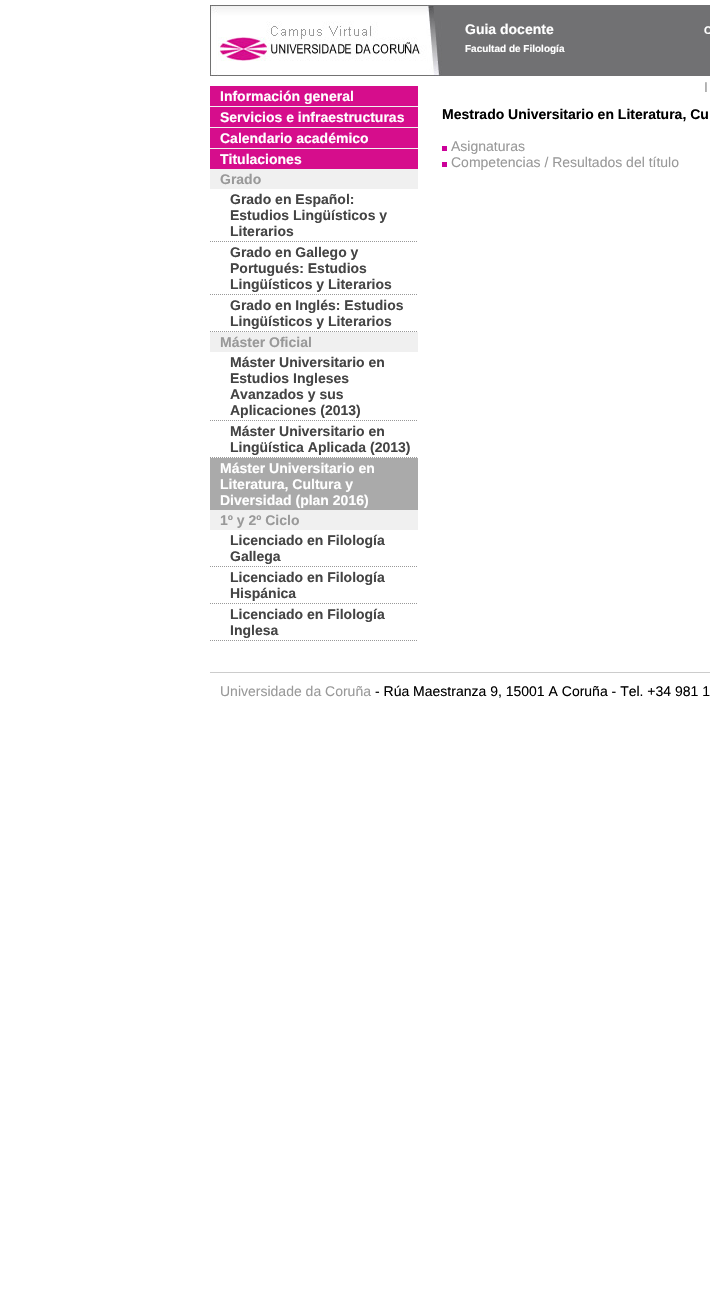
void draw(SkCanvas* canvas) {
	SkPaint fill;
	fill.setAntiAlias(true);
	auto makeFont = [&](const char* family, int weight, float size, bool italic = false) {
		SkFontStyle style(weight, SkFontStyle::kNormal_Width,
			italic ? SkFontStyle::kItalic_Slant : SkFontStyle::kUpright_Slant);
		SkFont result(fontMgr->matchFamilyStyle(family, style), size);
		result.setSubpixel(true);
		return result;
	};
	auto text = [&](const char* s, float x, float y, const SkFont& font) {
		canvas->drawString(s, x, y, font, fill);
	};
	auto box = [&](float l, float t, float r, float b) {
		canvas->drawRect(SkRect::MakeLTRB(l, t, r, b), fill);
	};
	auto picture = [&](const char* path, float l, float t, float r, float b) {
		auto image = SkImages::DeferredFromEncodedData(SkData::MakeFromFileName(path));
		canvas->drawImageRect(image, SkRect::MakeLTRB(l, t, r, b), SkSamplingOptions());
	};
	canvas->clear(0xFFFFFFFF);
	picture("image0.png", 210, 5, 710, 76);
	fill.setColor(0xFFF0F0F0);
	box(210, 106, 418, 530);
	fill.setColor(0xFFD60D8C);
	box(210, 86, 418, 106);
	box(210, 107, 418, 127);
	box(210, 128, 418, 148);
	box(210, 149, 418, 169);
	fill.setColor(0xFFFFFFFF);
	box(210, 189, 418, 332);
	fill.setStyle(SkPaint::kStroke_Style);
	fill.setStrokeWidth(1);
	fill.setColor(0xFF999999);
	fill.setPathEffect(SkDashPathEffect::Make({{1, 1}}, 0));
	canvas->drawPath(SkPathBuilder().moveTo(210, 241.5f).lineTo(418, 241.5f).detach(), fill);
	fill.setPathEffect(nullptr);
	fill.setPathEffect(SkDashPathEffect::Make({{1, 1}}, 0));
	canvas->drawPath(SkPathBuilder().moveTo(210, 294.5f).lineTo(418, 294.5f).detach(), fill);
	fill.setPathEffect(nullptr);
	fill.setPathEffect(SkDashPathEffect::Make({{1, 1}}, 0));
	canvas->drawPath(SkPathBuilder().moveTo(210, 331.5f).lineTo(418, 331.5f).detach(), fill);
	fill.setPathEffect(nullptr);
	fill.setStyle(SkPaint::kFill_Style);
	fill.setColor(0xFFFFFFFF);
	box(210, 352, 418, 458);
	fill.setStyle(SkPaint::kStroke_Style);
	fill.setColor(0xFF999999);
	fill.setPathEffect(SkDashPathEffect::Make({{1, 1}}, 0));
	canvas->drawPath(SkPathBuilder().moveTo(210, 420.5f).lineTo(418, 420.5f).detach(), fill);
	fill.setPathEffect(nullptr);
	fill.setPathEffect(SkDashPathEffect::Make({{1, 1}}, 0));
	canvas->drawPath(SkPathBuilder().moveTo(210, 457.5f).lineTo(418, 457.5f).detach(), fill);
	fill.setPathEffect(nullptr);
	fill.setStyle(SkPaint::kFill_Style);
	fill.setColor(0xFFAAAAAA);
	box(210, 458, 418, 510);
	fill.setStyle(SkPaint::kStroke_Style);
	fill.setColor(0xFF999999);
	fill.setPathEffect(SkDashPathEffect::Make({{1, 1}}, 0));
	canvas->drawPath(SkPathBuilder().moveTo(210, 566.5f).lineTo(418, 566.5f).detach(), fill);
	fill.setPathEffect(nullptr);
	fill.setPathEffect(SkDashPathEffect::Make({{1, 1}}, 0));
	canvas->drawPath(SkPathBuilder().moveTo(210, 603.5f).lineTo(418, 603.5f).detach(), fill);
	fill.setPathEffect(nullptr);
	fill.setPathEffect(SkDashPathEffect::Make({{1, 1}}, 0));
	canvas->drawPath(SkPathBuilder().moveTo(210, 640.5f).lineTo(418, 640.5f).detach(), fill);
	fill.setPathEffect(nullptr);
	fill.setStyle(SkPaint::kFill_Style);
	fill.setColor(0xFFCC0099);
	box(442, 146, 447, 151);
	box(442, 162, 447, 167);
	fill.setColor(0xFFCCCCCC);
	box(210, 672, 710, 673);
	auto font1 = makeFont("Liberation Sans", 700, 14);
	fill.setColor(0xFFFFFFFF);
	text("Guia docente", 465, 34, font1);
	auto font2 = makeFont("Liberation Sans", 700, 11);
	text("C", 704, 34, font2);
	auto font3 = makeFont("Liberation Sans", 700, 10);
	text("Facultad de Filología", 465, 52, font3);
	auto font4 = makeFont("Liberation Sans", 400, 14);
	fill.setColor(0xFF999999);
	text("I", 704, 92, font4);
	fill.setColor(0xFFFFFFFF);
	text("Información general", 220, 101, font1);
	text("Servicios e infraestructuras", 220, 122, font1);
	text("Calendario académico", 220, 143, font1);
	text("Titulaciones", 220, 164, font1);
	fill.setColor(0xFF999999);
	text("Grado", 220, 184, font1);
	fill.setColor(0xFF444444);
	text("Grado en Español:", 230, 204, font1);
	text("Estudios Lingüísticos y", 230, 220, font1);
	text("Literarios", 230, 236, font1);
	text("Grado en Gallego y", 230, 257, font1);
	text("Portugués: Estudios", 230, 273, font1);
	text("Lingüísticos y Literarios", 230, 289, font1);
	text("Grado en Inglés: Estudios", 230, 310, font1);
	text("Lingüísticos y Literarios", 230, 326, font1);
	fill.setColor(0xFF999999);
	text("Máster Oficial", 220, 347, font1);
	fill.setColor(0xFF444444);
	text("Máster Universitario en", 230, 367, font1);
	text("Estudios Ingleses", 230, 383, font1);
	text("Avanzados y sus", 230, 399, font1);
	text("Aplicaciones (2013)", 230, 415, font1);
	text("Máster Universitario en", 230, 436, font1);
	text("Lingüística Aplicada (2013)", 230, 452, font1);
	fill.setColor(0xFFFFFFFF);
	text("Máster Universitario en", 220, 473, font1);
	text("Literatura, Cultura y", 220, 489, font1);
	text("Diversidad (plan 2016)", 220, 505, font1);
	fill.setColor(0xFF999999);
	text("1º y 2º Ciclo", 220, 525, font1);
	fill.setColor(0xFF444444);
	text("Licenciado en Filología", 230, 545, font1);
	text("Gallega", 230, 561, font1);
	text("Licenciado en Filología", 230, 582, font1);
	text("Hispánica", 230, 598, font1);
	text("Licenciado en Filología", 230, 619, font1);
	text("Inglesa", 230, 635, font1);
	fill.setColor(0xFF000000);
	text("Mestrado Universitario en Literatura, Cu", 442, 119, font1);
	fill.setColor(0xFF999999);
	text("Asignaturas", 451, 151, font4);
	text("Competencias / Resultados del título", 451, 167, font4);
	text("Universidade da Coruña", 220, 696, font4);
	fill.setColor(0xFF000000);
	text("- Rúa Maestranza 9, 15001 A Coruña - Tel. +34 981 1", 375, 696, font4);
}
